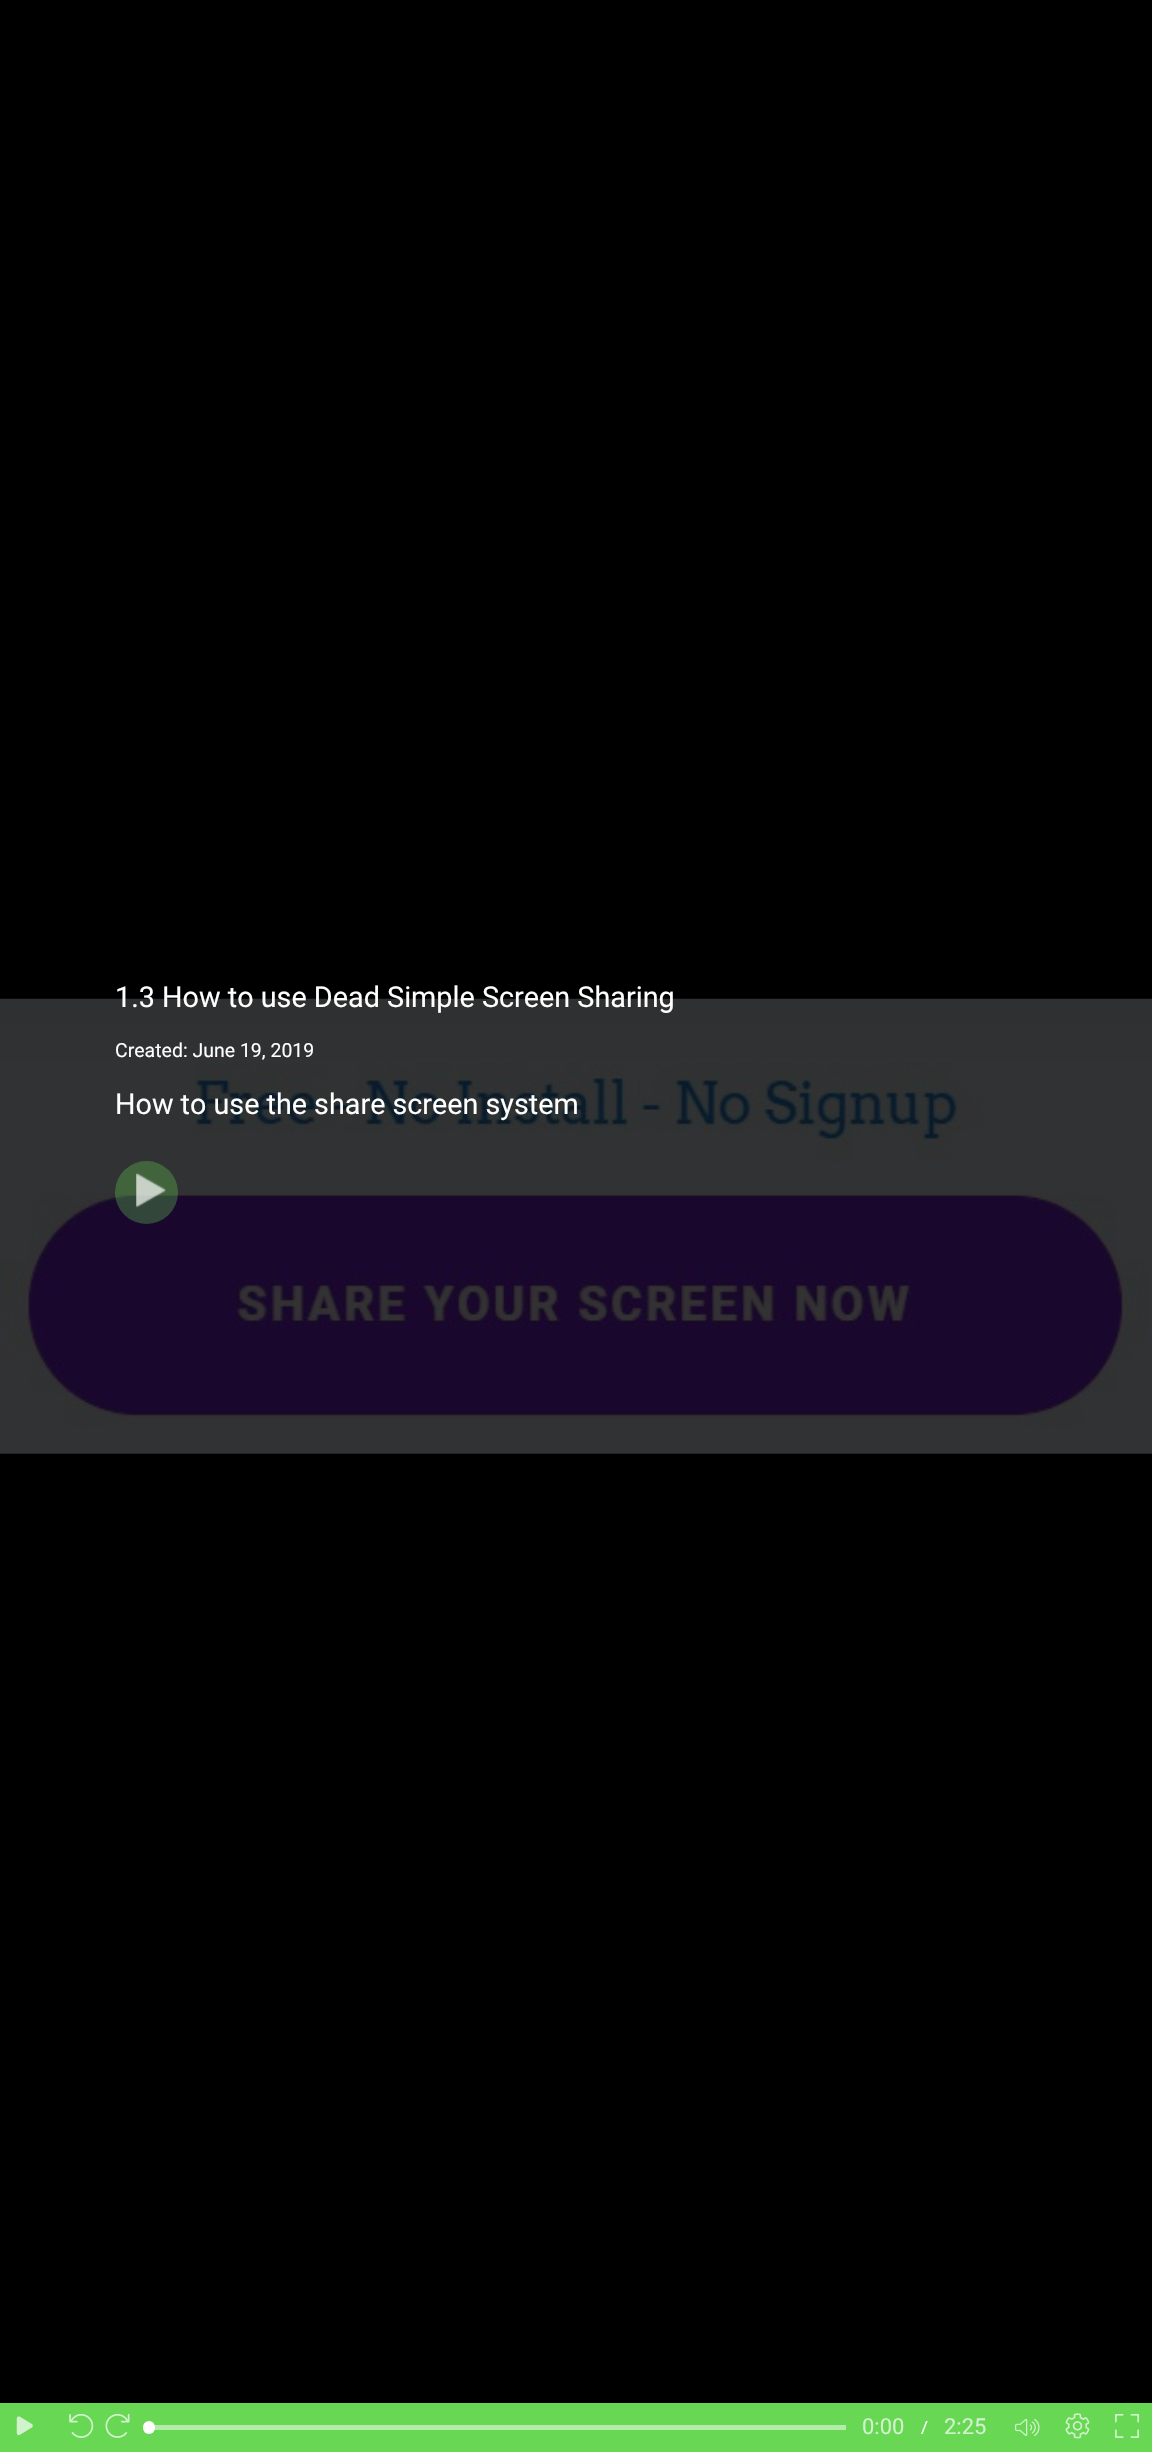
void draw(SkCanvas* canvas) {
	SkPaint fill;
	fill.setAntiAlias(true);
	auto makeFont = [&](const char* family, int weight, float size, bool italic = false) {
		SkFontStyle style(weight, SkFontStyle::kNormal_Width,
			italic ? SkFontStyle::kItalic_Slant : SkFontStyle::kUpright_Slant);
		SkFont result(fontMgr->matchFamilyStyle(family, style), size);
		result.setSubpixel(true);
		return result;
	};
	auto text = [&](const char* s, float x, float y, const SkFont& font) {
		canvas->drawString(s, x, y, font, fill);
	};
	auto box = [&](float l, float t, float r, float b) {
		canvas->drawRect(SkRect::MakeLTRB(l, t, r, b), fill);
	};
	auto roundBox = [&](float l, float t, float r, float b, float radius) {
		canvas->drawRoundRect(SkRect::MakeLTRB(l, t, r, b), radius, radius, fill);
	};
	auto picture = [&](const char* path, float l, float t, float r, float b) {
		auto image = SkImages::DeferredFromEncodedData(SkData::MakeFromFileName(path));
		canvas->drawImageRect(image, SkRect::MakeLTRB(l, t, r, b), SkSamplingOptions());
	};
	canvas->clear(0xFF000000);
	picture("image1.png", 0, 998, 1152, 1454);
	fill.setColor(0x4D67D754);
	canvas->drawCircle(146.5f, 1192.5f, 31.5f, fill);
	picture("image0.png", 136, 1173, 166, 1208);
	fill.setColor(0xFF67D754);
	box(0, 2403, 904, 2452);
	picture("image2.png", 16, 2416, 33, 2436);
	box(904, 2403, 1152, 2452);
	picture("image3.png", 1065, 2413, 1090, 2439);
	picture("image4.png", 69, 2414, 94, 2438);
	picture("image5.png", 105, 2414, 130, 2438);
	fill.setColor(0xFFB3EBAA);
	box(149, 2425, 846, 2430);
	fill.setColor(0xFFFFFFFF);
	roundBox(143, 2421, 155, 2434, 6);
	picture("image6.png", 1015, 2419, 1040, 2436);
	picture("image7.png", 1115, 2414, 1140, 2438);
	auto font1 = makeFont("Roboto", 400, 28.8f);
	text("1.3 How to use Dead Simple Screen Sharing", 115, 1007, font1);
	auto font2 = makeFont("Roboto", 400, 19.5f);
	text("Created: June 19, 2019", 115, 1057, font2);
	auto font3 = makeFont("Roboto", 400, 28.75f);
	text("How to use the share screen system", 115, 1114, font3);
	auto font4 = makeFont("Roboto", 400, 22);
	fill.setColor(0xFFD1F3CC);
	text("0:00", 862, 2434, font4);
	auto font5 = makeFont("Roboto", 400, 17);
	fill.setColor(0xFFFFFFFF);
	text("/", 921, 2433, font5);
	fill.setColor(0xFFD1F3CC);
	text("2:25", 944, 2434, font4);
}
